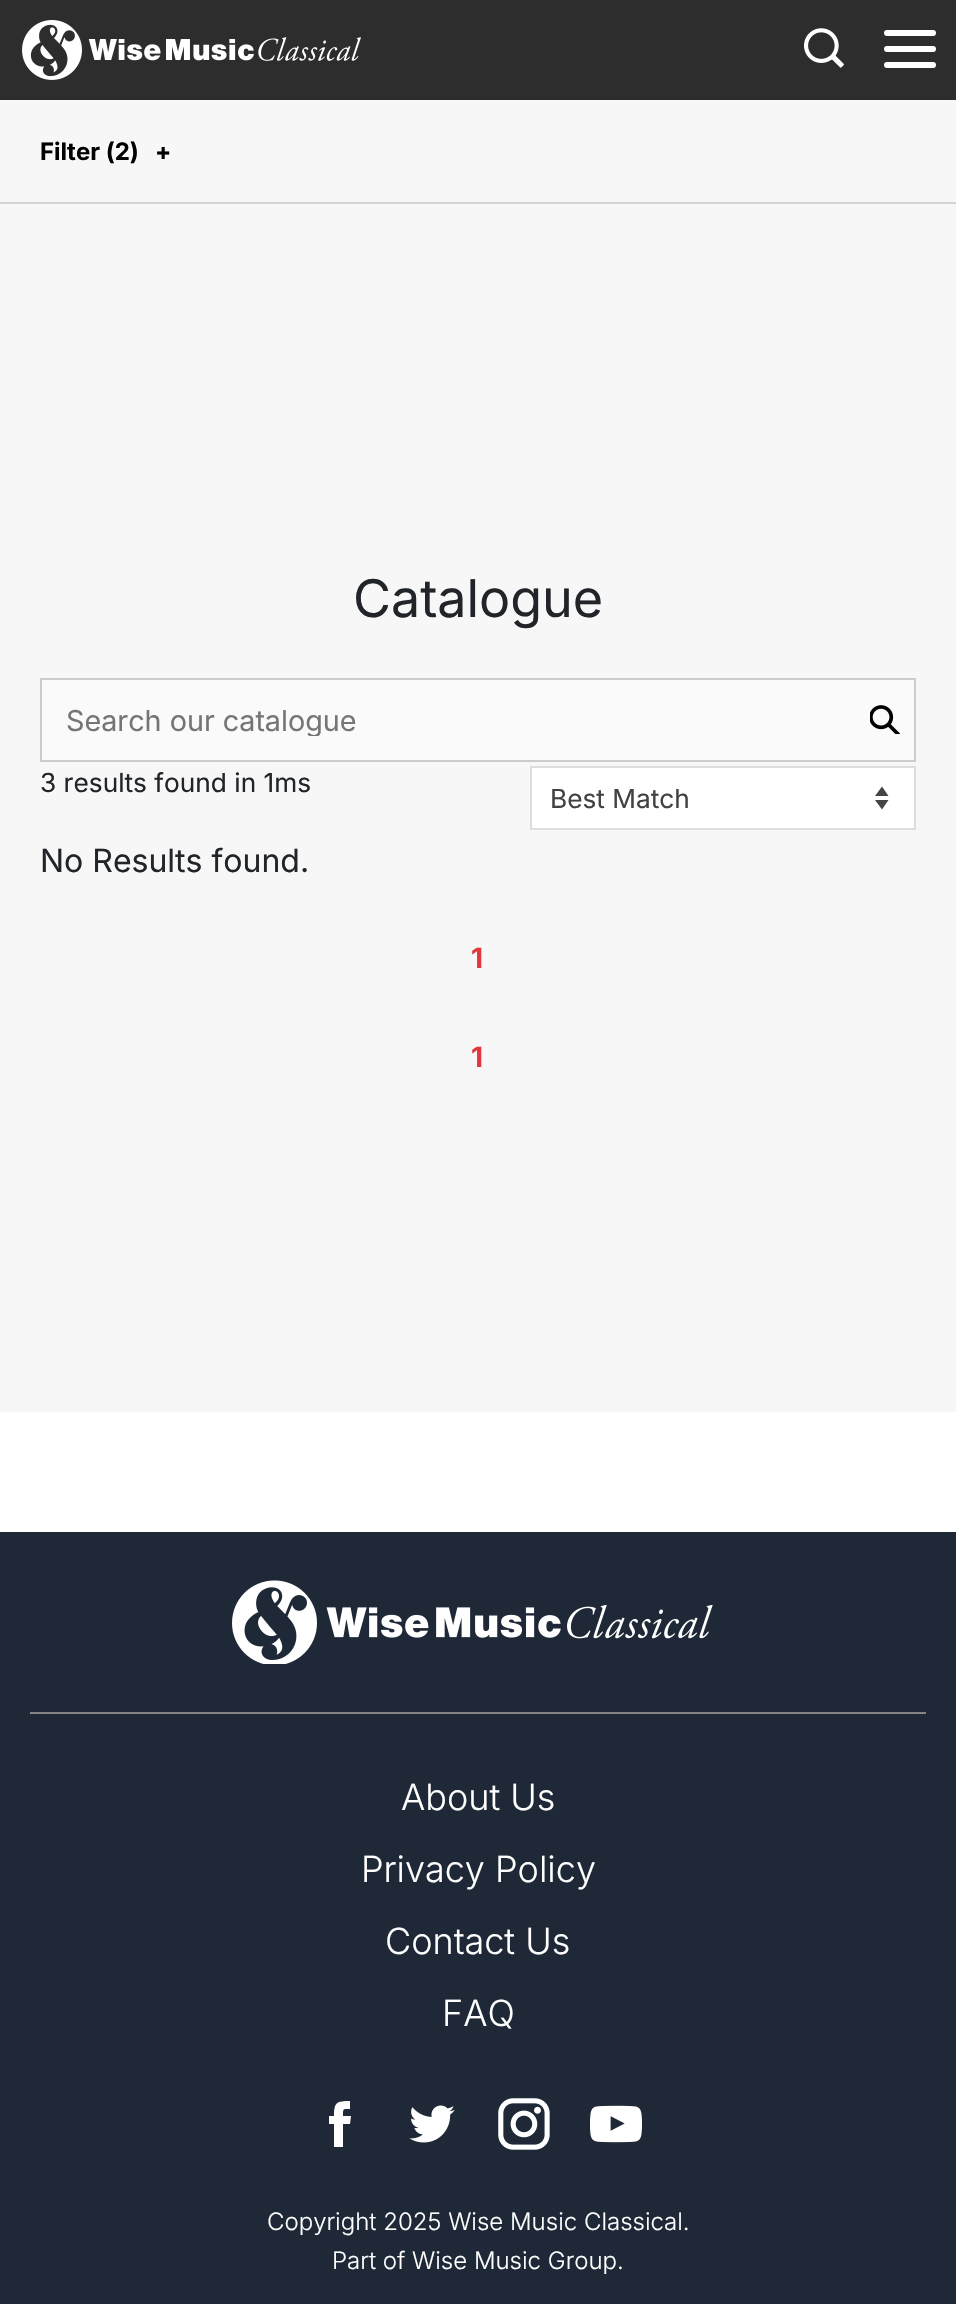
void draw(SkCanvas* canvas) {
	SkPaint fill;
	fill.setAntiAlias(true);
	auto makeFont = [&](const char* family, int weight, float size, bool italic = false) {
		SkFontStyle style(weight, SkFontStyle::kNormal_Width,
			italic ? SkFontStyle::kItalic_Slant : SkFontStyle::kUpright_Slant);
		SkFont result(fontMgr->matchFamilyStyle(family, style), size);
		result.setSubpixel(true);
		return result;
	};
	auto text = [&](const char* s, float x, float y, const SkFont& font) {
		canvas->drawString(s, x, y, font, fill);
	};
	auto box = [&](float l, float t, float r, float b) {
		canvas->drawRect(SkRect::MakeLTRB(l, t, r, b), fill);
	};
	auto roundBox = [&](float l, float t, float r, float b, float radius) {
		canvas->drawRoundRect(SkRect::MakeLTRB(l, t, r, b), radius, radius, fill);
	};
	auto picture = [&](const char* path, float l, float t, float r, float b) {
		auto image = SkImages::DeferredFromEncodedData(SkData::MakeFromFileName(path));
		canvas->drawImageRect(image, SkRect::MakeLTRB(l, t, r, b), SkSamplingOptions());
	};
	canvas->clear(0xFFFFFFFF);
	fill.setColor(0xFF2D2D2D);
	box(0, 0, 956, 100);
	picture("image0.png", 22, 20, 361, 80);
	picture("image1.png", 804, 28, 844, 68);
	fill.setColor(0xFFFFFFFF);
	roundBox(884, 46, 936, 52, 3);
	roundBox(884, 30, 936, 36, 3);
	roundBox(884, 62, 936, 68, 3);
	fill.setColor(0xFFF7F7F7);
	box(0, 100, 956, 1412);
	fill.setColor(0xFFD3D3D3);
	box(0, 202, 956, 204);
	fill.setColor(0xFFFAFAFA);
	canvas->drawRect(SkRect::MakeLTRB(41, 679, 915, 761), fill);
	fill.setStyle(SkPaint::kStroke_Style);
	fill.setStrokeWidth(2);
	fill.setColor(0xFFCCCCCC);
	canvas->drawRect(SkRect::MakeLTRB(41, 679, 915, 761), fill);
	picture("image2.png", 870, 705, 900, 734);
	fill.setStyle(SkPaint::kFill_Style);
	fill.setColor(0xFFFFFFFF);
	box(532, 768, 914, 828);
	fill.setColor(0xFF444444);
	canvas->drawPath(SkPathBuilder().moveTo(875, 796).lineTo(882, 786.5f).lineTo(888.5f, 796).close().moveTo(888.5f, 800).lineTo(882, 809.5f).lineTo(875, 800).close().detach(), fill);
	fill.setStyle(SkPaint::kStroke_Style);
	fill.setColor(0xFFDDDDDD);
	canvas->drawRect(SkRect::MakeLTRB(531, 767, 915, 829), fill);
	fill.setStyle(SkPaint::kFill_Style);
	fill.setColor(0xFF1E2837);
	box(0, 1532, 956, 2304);
	fill.setColor(0xFF858585);
	box(30, 1712, 926, 1714);
	picture("image3.png", 232, 1580, 713, 1664);
	fill.setColor(0xFFFFFFFF);
	canvas->drawPath(SkPathBuilder().moveTo(351, 2116).lineTo(343, 2116).cubicTo(343, 2108, 343, 2109, 350, 2109).lineTo(350, 2101).cubicTo(337, 2101, 334, 2102, 334, 2116).lineTo(329, 2116).lineTo(329, 2124).lineTo(334, 2124).lineTo(334, 2147).lineTo(343, 2147).lineTo(343, 2124).lineTo(350, 2124).close().detach(), fill);
	picture("image4.png", 409, 2105, 455, 2143);
	picture("image5.png", 498, 2098, 550, 2150);
	picture("image6.png", 590, 2105, 642, 2143);
	auto font1 = makeFont("Inter", 700, 24);
	fill.setColor(0xFF000000);
	text("Filter (2)", 40, 160, font1);
	text("+", 155, 160, font1);
	auto font2 = makeFont("Inter", 400, 52);
	fill.setColor(0xFF212529);
	text("Catalogue", 353, 617, font2);
	canvas->save();
	canvas->clipRect(SkRect::MakeLTRB(66, 702, 782, 736));
	auto font3 = makeFont("Inter", 400, 28.75f);
	fill.setColor(0xFF757575);
	text("Search our catalogue", 66, 731, font3);
	canvas->restore();
	auto font4 = makeFont("Inter", 400, 26.25f);
	fill.setColor(0xFF212529);
	text("3 results found in 1ms", 40, 792, font4);
	fill.setColor(0xFF424242);
	text("Best Match", 550, 808, font4);
	auto font5 = makeFont("Inter", 400, 32);
	fill.setColor(0xFF212529);
	text("No Results found.", 40, 872, font5);
	auto font6 = makeFont("Inter", 700, 28);
	fill.setColor(0xFFE0393D);
	text("1", 471, 968, font6);
	text("1", 471, 1067, font6);
	auto font7 = makeFont("Inter", 300, 36);
	fill.setColor(0xFFFFFFFF);
	text("About Us", 401, 1810, font7);
	text("Privacy Policy", 361, 1882, font7);
	text("Contact Us", 385, 1954, font7);
	text("FAQ", 442, 2026, font7);
	auto font8 = makeFont("Inter", 300, 24);
	text("Copyright 2025 Wise Music Classical.", 267, 2230, font8);
	text("Part of Wise Music Group.", 332, 2269, font8);
}
